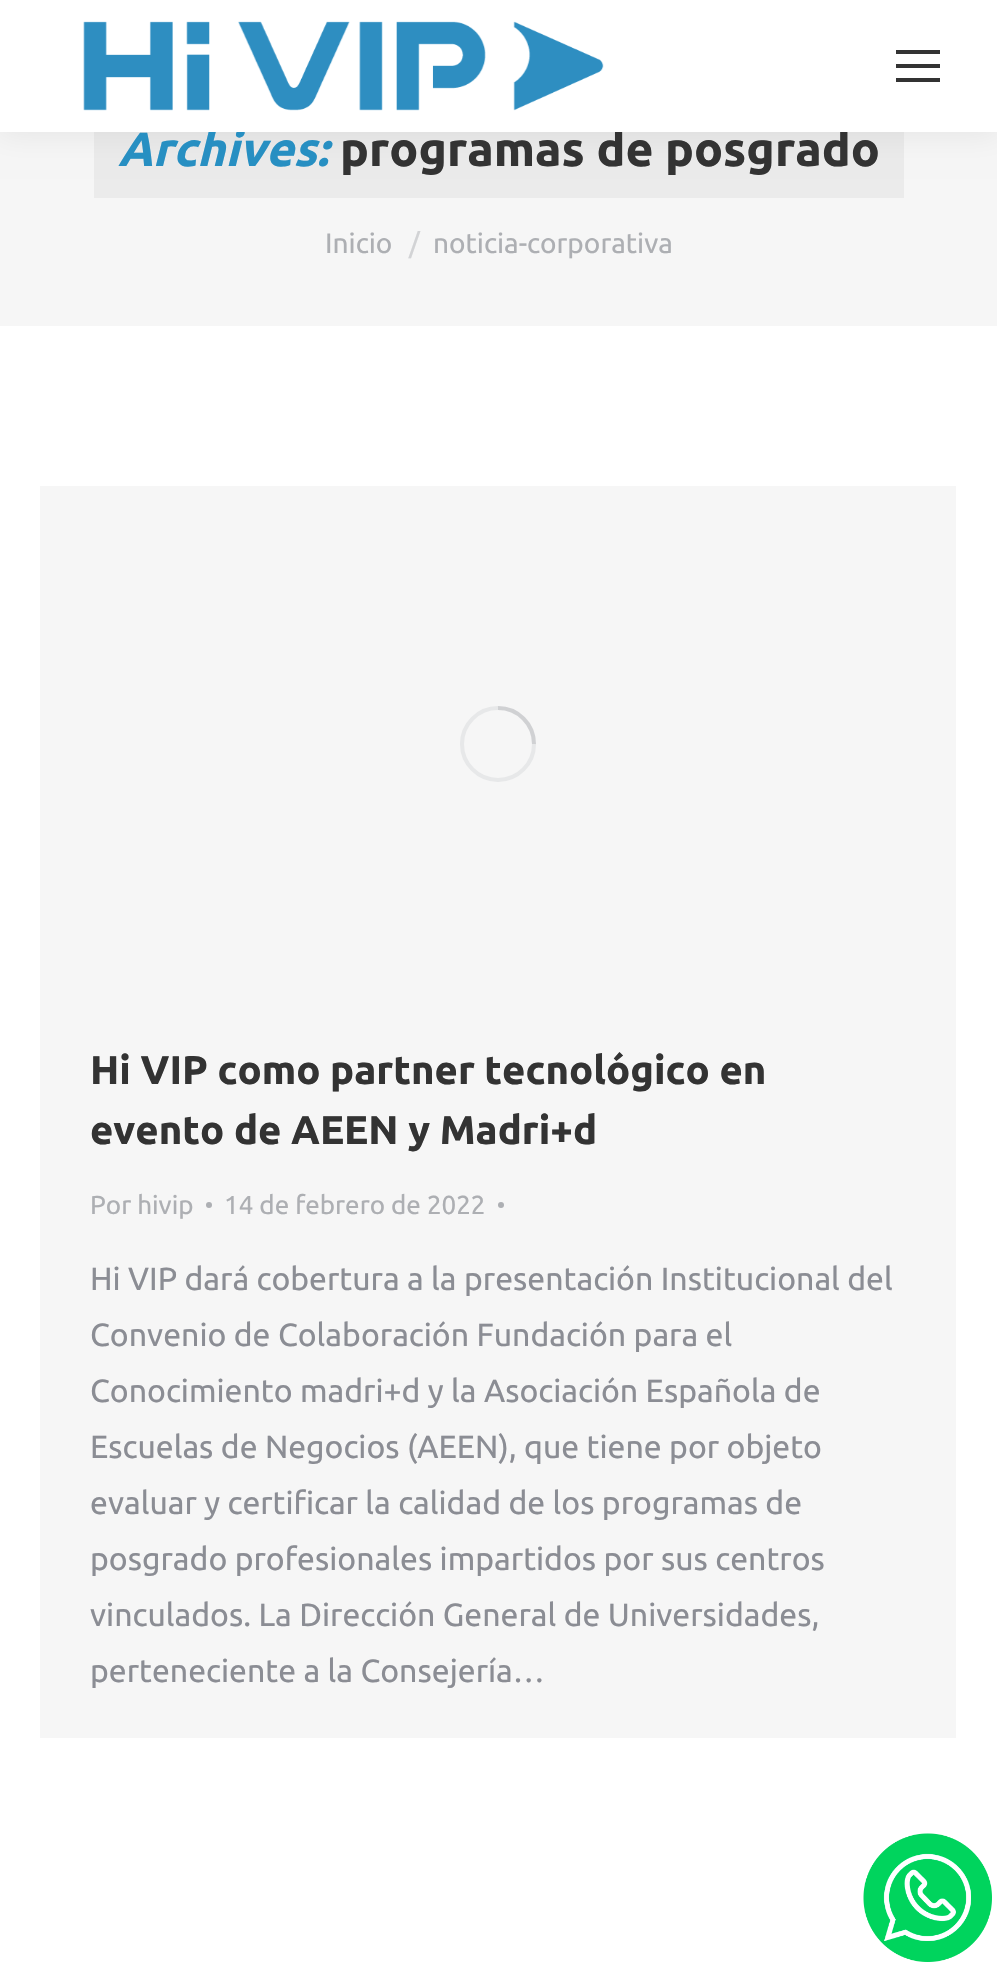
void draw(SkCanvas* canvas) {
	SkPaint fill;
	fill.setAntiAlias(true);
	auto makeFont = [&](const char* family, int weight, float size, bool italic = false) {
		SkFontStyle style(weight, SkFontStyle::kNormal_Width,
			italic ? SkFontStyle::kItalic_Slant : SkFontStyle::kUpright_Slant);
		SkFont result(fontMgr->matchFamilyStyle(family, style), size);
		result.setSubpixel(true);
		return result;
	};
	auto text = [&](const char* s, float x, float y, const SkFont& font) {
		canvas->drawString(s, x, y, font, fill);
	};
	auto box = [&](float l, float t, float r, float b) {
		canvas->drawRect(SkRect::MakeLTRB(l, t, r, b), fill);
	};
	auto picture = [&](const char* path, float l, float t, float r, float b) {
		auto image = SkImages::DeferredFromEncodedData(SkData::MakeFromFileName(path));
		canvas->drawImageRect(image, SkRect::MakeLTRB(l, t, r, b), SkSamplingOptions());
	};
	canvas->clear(0xFFFFFFFF);
	fill.setColor(0xFFF6F6F6);
	box(0, 132, 997, 326);
	fill.setColor(0xFFEBEBEB);
	box(94, 132, 904, 198);
	fill.setColor(0x12000000);
	fill.setMaskFilter(SkMaskFilter::MakeBlur(kNormal_SkBlurStyle, 15));
	canvas->drawRect(SkRect::MakeLTRB(-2, -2, 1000, 134), fill);
	fill.setMaskFilter(nullptr);
	fill.setColor(0xFFF6F6F6);
	box(40, 486, 956, 1738);
	fill.setStyle(SkPaint::kStroke_Style);
	fill.setStrokeWidth(4);
	fill.setColor(0xFFE7E8E9);
	canvas->drawCircle(498, 744, 36, fill);
	fill.setColor(0x408B8D94);
	canvas->drawPath(SkPathBuilder().moveTo(534, 744).cubicTo(534, 724, 518, 708, 498, 708).detach(), fill);
	fill.setStyle(SkPaint::kFill_Style);
	fill.setColor(0xFFADAFB3);
	canvas->drawCircle(209, 1205, 3, fill);
	canvas->drawCircle(501, 1205, 3, fill);
	picture("image1.png", 863, 1833, 992, 1962);
	auto font1 = makeFont("Ubuntu", 700, 48, true);
	fill.setColor(0xFF278FC2);
	text("Archives:", 118, 166, font1);
	auto font2 = makeFont("Ubuntu", 700, 48);
	fill.setColor(0xFF333333);
	text("programas de posgrado", 340, 166, font2);
	fill.setColor(0xFFFFFFFF);
	box(0, 0, 997, 132);
	fill.setColor(0xFF333333);
	box(896, 78, 940, 82);
	box(896, 64, 940, 68);
	box(896, 50, 940, 54);
	picture("image0.png", 83, 21, 604, 111);
	auto font3 = makeFont("Ubuntu", 400, 28);
	fill.setColor(0xFFADAFB3);
	text("Inicio", 325, 253, font3);
	fill.setColor(0xFFD2D3D5);
	text("/", 409, 253, font3);
	fill.setColor(0xFFADAFB3);
	text("noticia-corporativa", 433, 253, font3);
	auto font4 = makeFont("Ubuntu", 700, 40);
	fill.setColor(0xFF333333);
	text("Hi VIP como partner tecnológico en", 90, 1084, font4);
	text("evento de AEEN y Madri+d", 90, 1144, font4);
	auto font5 = makeFont("Ubuntu", 400, 26);
	fill.setColor(0xFFADAFB3);
	text("Por hivip", 90, 1214, font5);
	text("14 de febrero de 2022", 224, 1214, font5);
	auto font6 = makeFont("Ubuntu", 400, 32);
	fill.setColor(0xFF8B8D94);
	text("Hi VIP dará cobertura a la presentación Institucional del", 90, 1290, font6);
	text("Convenio de Colaboración Fundación para el", 90, 1346, font6);
	text("Conocimiento madri+d y la Asociación Española de", 90, 1402, font6);
	text("Escuelas de Negocios (AEEN), que tiene por objeto", 90, 1458, font6);
	text("evaluar y certificar la calidad de los programas de", 90, 1514, font6);
	text("posgrado profesionales impartidos por sus centros", 90, 1570, font6);
	text("vinculados. La Dirección General de Universidades,", 90, 1626, font6);
	text("perteneciente a la Consejería…", 90, 1682, font6);
}
